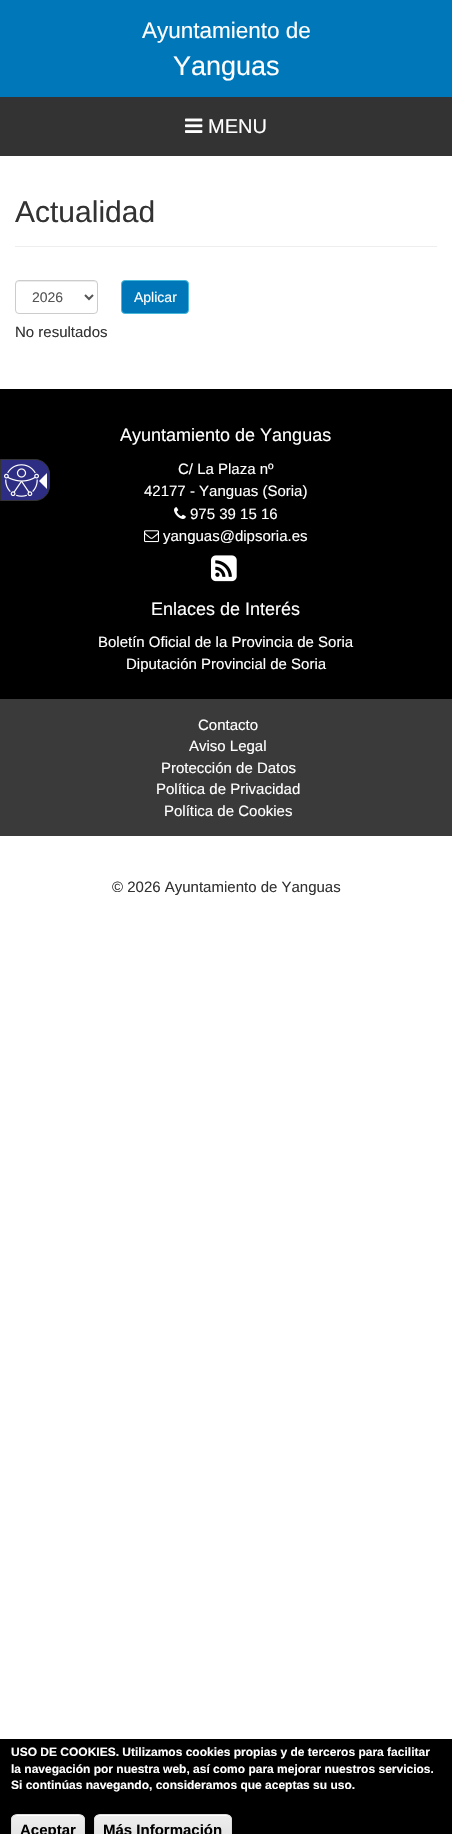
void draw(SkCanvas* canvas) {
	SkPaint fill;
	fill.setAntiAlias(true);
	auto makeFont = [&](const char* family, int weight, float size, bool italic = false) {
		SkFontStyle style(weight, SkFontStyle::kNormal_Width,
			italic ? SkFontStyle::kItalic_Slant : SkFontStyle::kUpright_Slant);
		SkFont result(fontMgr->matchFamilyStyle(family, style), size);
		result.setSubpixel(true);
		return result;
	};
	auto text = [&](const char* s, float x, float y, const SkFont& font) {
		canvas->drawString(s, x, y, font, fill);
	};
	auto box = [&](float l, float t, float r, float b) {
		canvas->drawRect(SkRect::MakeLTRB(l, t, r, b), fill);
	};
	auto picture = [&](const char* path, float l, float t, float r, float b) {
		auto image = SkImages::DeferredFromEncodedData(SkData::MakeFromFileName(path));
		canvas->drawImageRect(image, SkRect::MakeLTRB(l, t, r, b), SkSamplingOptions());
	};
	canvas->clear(0xFFFFFFFF);
	fill.setColor(0xFF0077B9);
	box(0, 0, 452, 97);
	fill.setColor(0xFF333333);
	box(0, 97, 452, 156);
	picture("image0.png", 185, 118, 203, 133);
	fill.setColor(0xFFEEEEEE);
	box(15, 246, 437, 247);
	fill.setColor(0xFFECECEC);
	canvas->drawPath(SkPathBuilder().moveTo(19, 282).lineTo(94, 282).cubicTo(96, 282, 97, 283, 97, 285).cubicTo(97, 278, 85, 281, 82, 281).lineTo(32, 281).cubicTo(28, 281, 16, 278, 16, 285).cubicTo(16, 283, 17, 282, 19, 282).close().detach(), fill);
	fill.setStyle(SkPaint::kStroke_Style);
	fill.setStrokeWidth(1);
	fill.setColor(0xFFCCCCCC);
	canvas->drawRoundRect(SkRect::MakeLTRB(15.5f, 280.5f, 97.5f, 313.5f), 3.5f, 3.5f, fill);
	fill.setStrokeWidth(2);
	fill.setColor(0xFF555555);
	canvas->drawPath(SkPathBuilder().moveTo(85, 295).lineTo(89, 299).lineTo(93, 295).detach(), fill);
	fill.setStyle(SkPaint::kFill_Style);
	fill.setColor(0xFF0077B9);
	canvas->drawRoundRect(SkRect::MakeLTRB(121.5f, 280.5f, 188.5f, 313.5f), 3.5f, 3.5f, fill);
	fill.setStyle(SkPaint::kStroke_Style);
	fill.setStrokeWidth(1);
	fill.setColor(0xFF46B8DA);
	canvas->drawRoundRect(SkRect::MakeLTRB(121.5f, 280.5f, 188.5f, 313.5f), 3.5f, 3.5f, fill);
	fill.setStyle(SkPaint::kFill_Style);
	fill.setColor(0xFF000000);
	box(0, 389, 452, 699);
	fill.setColor(0xFF2D2E83);
	canvas->drawPath(SkPathBuilder().moveTo(0.5f, 459.5f).lineTo(35, 459.5f).cubicTo(43, 459.5f, 49.5f, 466, 49.5f, 474).lineTo(49.5f, 486).cubicTo(49.5f, 494, 43, 500.5f, 35, 500.5f).lineTo(0.5f, 500.5f).close().detach(), fill);
	fill.setStyle(SkPaint::kStroke_Style);
	fill.setColor(0xFF333333);
	canvas->drawPath(SkPathBuilder().moveTo(0.5f, 459.5f).lineTo(35, 459.5f).cubicTo(43, 459.5f, 49.5f, 466, 49.5f, 474).lineTo(49.5f, 486).cubicTo(49.5f, 494, 43, 500.5f, 35, 500.5f).lineTo(0.5f, 500.5f).close().detach(), fill);
	picture("image1.png", 4, 464, 39, 497);
	fill.setStyle(SkPaint::kFill_Style);
	fill.setColor(0xFFFFFFFF);
	canvas->drawPath(SkPathBuilder().moveTo(47, 473).lineTo(47, 489).lineTo(39, 481).close().detach(), fill);
	picture("image2.png", 174, 507, 186, 519);
	picture("image3.png", 144, 530, 159, 543);
	picture("image4.png", 211, 555, 237, 582);
	fill.setColor(0xFF3A3A3A);
	box(0, 699, 452, 836);
	fill.setColor(0xFF000000);
	box(0, 1739, 452, 1834);
	canvas->save();
	canvas->clipPath(SkPathBuilder().moveTo(17, 1814).lineTo(79, 1814).cubicTo(82.5f, 1814, 85, 1816.5f, 85, 1820).lineTo(85, 1840).cubicTo(85, 1843.5f, 82.5f, 1846, 79, 1846).lineTo(17, 1846).cubicTo(13.5f, 1846, 11, 1843.5f, 11, 1840).lineTo(11, 1820).cubicTo(11, 1816.5f, 13.5f, 1814, 17, 1814).close().detach(), true);
	{
		const SkColor colors[] = {0xFFEDEDED, 0xFFDFDFDF};
		const float stops[] = {0.05f, 1};
		const SkPoint ends[] = {{48, 1815}, {48, 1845}};
		fill.setShader(SkGradientShader::MakeLinear(ends, colors, stops, 2, SkTileMode::kClamp));
		fill.setAlpha(255);
	}
	box(11, 1815, 85, 1834);
	canvas->restore();
	fill.setShader(nullptr);
	fill.setColor(0xFFFFFFFF);
	canvas->drawPath(SkPathBuilder().moveTo(17, 1816).lineTo(79, 1816).cubicTo(82, 1816, 84, 1818, 84, 1821).cubicTo(84, 1813, 74, 1815, 69, 1815).lineTo(27, 1815).cubicTo(22, 1815, 12, 1813, 12, 1821).cubicTo(12, 1818, 14, 1816, 17, 1816).close().detach(), fill);
	fill.setStyle(SkPaint::kStroke_Style);
	fill.setColor(0xFFDCDCDC);
	canvas->drawRoundRect(SkRect::MakeLTRB(11.5f, 1814.5f, 84.5f, 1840.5f), 5.5f, 5.5f, fill);
	canvas->save();
	canvas->clipPath(SkPathBuilder().moveTo(100, 1814).lineTo(226, 1814).cubicTo(229.5f, 1814, 232, 1816.5f, 232, 1820).lineTo(232, 1840).cubicTo(232, 1843.5f, 229.5f, 1846, 226, 1846).lineTo(100, 1846).cubicTo(96.5f, 1846, 94, 1843.5f, 94, 1840).lineTo(94, 1820).cubicTo(94, 1816.5f, 96.5f, 1814, 100, 1814).close().detach(), true);
	fill.setStyle(SkPaint::kFill_Style);
	{
		const SkColor colors[] = {0xFFEDEDED, 0xFFDFDFDF};
		const float stops[] = {0.05f, 1};
		const SkPoint ends[] = {{163, 1815}, {163, 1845}};
		fill.setShader(SkGradientShader::MakeLinear(ends, colors, stops, 2, SkTileMode::kClamp));
		fill.setAlpha(255);
	}
	box(94, 1815, 232, 1834);
	canvas->restore();
	fill.setShader(nullptr);
	fill.setColor(0xFFFFFFFF);
	canvas->drawPath(SkPathBuilder().moveTo(100, 1816).lineTo(226, 1816).cubicTo(229, 1816, 231, 1818, 231, 1821).lineTo(231, 1820).cubicTo(231, 1817, 229, 1815, 226, 1815).lineTo(100, 1815).cubicTo(97, 1815, 95, 1817, 95, 1820).lineTo(95, 1821).cubicTo(95, 1818, 97, 1816, 100, 1816).close().detach(), fill);
	fill.setStyle(SkPaint::kStroke_Style);
	fill.setColor(0xFFDCDCDC);
	canvas->drawRoundRect(SkRect::MakeLTRB(94.5f, 1814.5f, 231.5f, 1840.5f), 5.5f, 5.5f, fill);
	auto font1 = makeFont("Liberation Sans", 400, 22.5f);
	fill.setStyle(SkPaint::kFill_Style);
	fill.setColor(0xFFFFFFFF);
	text("Ayuntamiento de", 142, 38, font1);
	auto font2 = makeFont("Liberation Sans", 400, 27);
	text("Yanguas", 173, 75, font2);
	auto font3 = makeFont("Liberation Sans", 400, 20);
	text("MENU", 208, 133, font3);
	auto font4 = makeFont("Liberation Sans", 400, 30);
	fill.setColor(0xFF333333);
	text("Actualidad", 15, 222, font4);
	auto font5 = makeFont("Liberation Sans", 400, 14);
	fill.setColor(0xFF555555);
	text("2026", 32, 302, font5);
	fill.setColor(0xFFFFFFFF);
	text("Aplicar", 134, 302, font5);
	auto font6 = makeFont("Liberation Sans", 400, 15);
	fill.setColor(0xFF333333);
	text("No resultados", 15, 337, font6);
	auto font7 = makeFont("Liberation Sans", 400, 18);
	fill.setColor(0xFFFFFFFF);
	text("Ayuntamiento de Yanguas", 120, 441, font7);
	text("C/ La Plaza nº", 178, 474, font6);
	text("42177 - Yanguas (Soria)", 144, 496, font6);
	text("975 39 15 16", 190, 519, font6);
	text("yanguas@dipsoria.es", 163, 541, font6);
	text("Enlaces de Interés", 151, 615, font7);
	text("Boletín Oficial de la Provincia de Soria", 98, 647, font6);
	text("Diputación Provincial de Soria", 126, 669, font6);
	text("Contacto", 198, 730, font6);
	text("Aviso Legal", 189, 751, font6);
	text("Protección de Datos", 161, 773, font6);
	text("Política de Privacidad", 156, 794, font6);
	text("Política de Cookies", 164, 816, font6);
	fill.setColor(0xFF333333);
	text("© 2026 Ayuntamiento de Yanguas", 112, 892, font6);
	auto font8 = makeFont("Liberation Sans", 700, 12);
	fill.setColor(0xFFFFFFFF);
	text("USO DE COOKIES. Utilizamos cookies propias y de terceros para facilitar", 11, 1756, font8);
	text("la navegación por nuestra web, así como para mejorar nuestros servicios.", 11, 1773, font8);
	text("Si continúas navegando, consideramos que aceptas su uso.", 11, 1789, font8);
	auto font9 = makeFont("Liberation Sans", 700, 15);
	fill.setColor(0xFF000000);
	text("Aceptar", 20, 1835, font9);
	text("Más Información", 103, 1835, font9);
}
